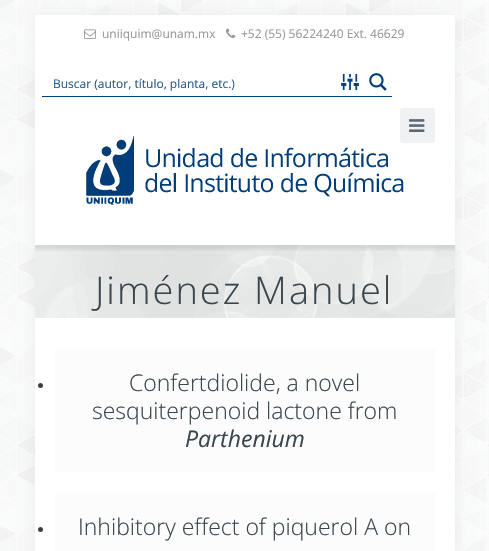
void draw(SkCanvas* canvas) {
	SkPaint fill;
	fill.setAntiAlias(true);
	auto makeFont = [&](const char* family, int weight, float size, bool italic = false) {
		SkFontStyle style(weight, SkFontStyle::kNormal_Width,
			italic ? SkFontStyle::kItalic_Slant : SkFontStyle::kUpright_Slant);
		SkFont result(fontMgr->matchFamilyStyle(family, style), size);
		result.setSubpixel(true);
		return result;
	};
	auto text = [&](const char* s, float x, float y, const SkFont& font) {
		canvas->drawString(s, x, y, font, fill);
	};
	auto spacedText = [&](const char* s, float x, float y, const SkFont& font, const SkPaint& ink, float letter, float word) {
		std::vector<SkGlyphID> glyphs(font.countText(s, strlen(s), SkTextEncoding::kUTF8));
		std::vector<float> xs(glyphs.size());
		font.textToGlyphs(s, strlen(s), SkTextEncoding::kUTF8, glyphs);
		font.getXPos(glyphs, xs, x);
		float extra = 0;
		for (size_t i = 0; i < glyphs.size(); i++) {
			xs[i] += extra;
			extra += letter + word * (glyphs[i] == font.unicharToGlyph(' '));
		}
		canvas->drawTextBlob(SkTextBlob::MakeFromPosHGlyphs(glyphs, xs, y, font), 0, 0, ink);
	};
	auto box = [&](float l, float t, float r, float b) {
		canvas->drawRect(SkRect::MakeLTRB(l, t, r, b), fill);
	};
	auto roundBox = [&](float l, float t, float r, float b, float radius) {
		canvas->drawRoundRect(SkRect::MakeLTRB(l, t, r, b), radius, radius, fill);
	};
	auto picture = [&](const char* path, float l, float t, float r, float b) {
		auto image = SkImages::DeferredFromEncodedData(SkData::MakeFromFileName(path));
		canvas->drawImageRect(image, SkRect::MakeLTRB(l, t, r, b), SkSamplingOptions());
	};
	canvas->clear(0xFFF7F8F8);
	picture("image0.png", 0, 0, 489, 551);
	fill.setColor(0x0F000000);
	fill.setMaskFilter(SkMaskFilter::MakeBlur(kNormal_SkBlurStyle, 7.5f));
	canvas->drawRect(SkRect::MakeLTRB(35, 15, 455, 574), fill);
	fill.setMaskFilter(nullptr);
	fill.setColor(0xFFFFFFFF);
	box(35, 15, 455, 551);
	picture("image1.png", 84, 29, 96, 39);
	picture("image2.png", 226, 28, 236, 38);
	fill.setColor(0xFF003D79);
	box(42, 96, 392, 97);
	picture("image3.png", 341, 74, 359, 90);
	picture("image4.png", 369, 73, 387, 91);
	picture("image6.png", 86, 136, 404, 205);
	fill.setColor(0xFFEFF1F2);
	roundBox(400, 108, 435, 143, 3);
	picture("image5.png", 409, 119, 425, 132);
	fill.setColor(0xFFF7F9F9);
	box(35, 245, 455, 318);
	picture("image8.png", 35, 245, 455, 318);
	picture("image7.png", 35, 245, 455, 251);
	fill.setColor(0xFFFCFCFC);
	box(55, 348, 435, 472);
	fill.setColor(0xFF3C3F43);
	canvas->drawCircle(40.5f, 385.5f, 2.5f, fill);
	fill.setColor(0xFFFCFCFC);
	box(55, 492, 435, 551);
	fill.setColor(0xFF3C3F43);
	canvas->drawCircle(40.5f, 529.5f, 2.5f, fill);
	auto font1 = makeFont("Open Sans", 400, 12);
	fill.setColor(0xFF989898);
	text("uniiquim@unam.mx", 102, 38, font1);
	text("+52 (55) 56224240 Ext. 46629", 241, 38, font1);
	fill.setColor(0xFF265A8D);
	text("Buscar (autor, título, planta, etc.)", 53, 88, font1);
	auto font2 = makeFont("Open Sans", 300, 38);
	fill.setColor(0xFF39464E);
	spacedText("Jiménez Manuel", 95, 304, font2, fill, 2, 0);
	auto font3 = makeFont("Open Sans", 300, 23);
	text("Confertdiolide, a novel", 129, 391, font3);
	text("sesquiterpenoid lactone from", 92, 419, font3);
	auto font4 = makeFont("Open Sans", 400, 23, true);
	text("Parthenium", 185, 447, font4);
	text("Inhibitory effect of piquerol A on", 78, 535, font3);
}
